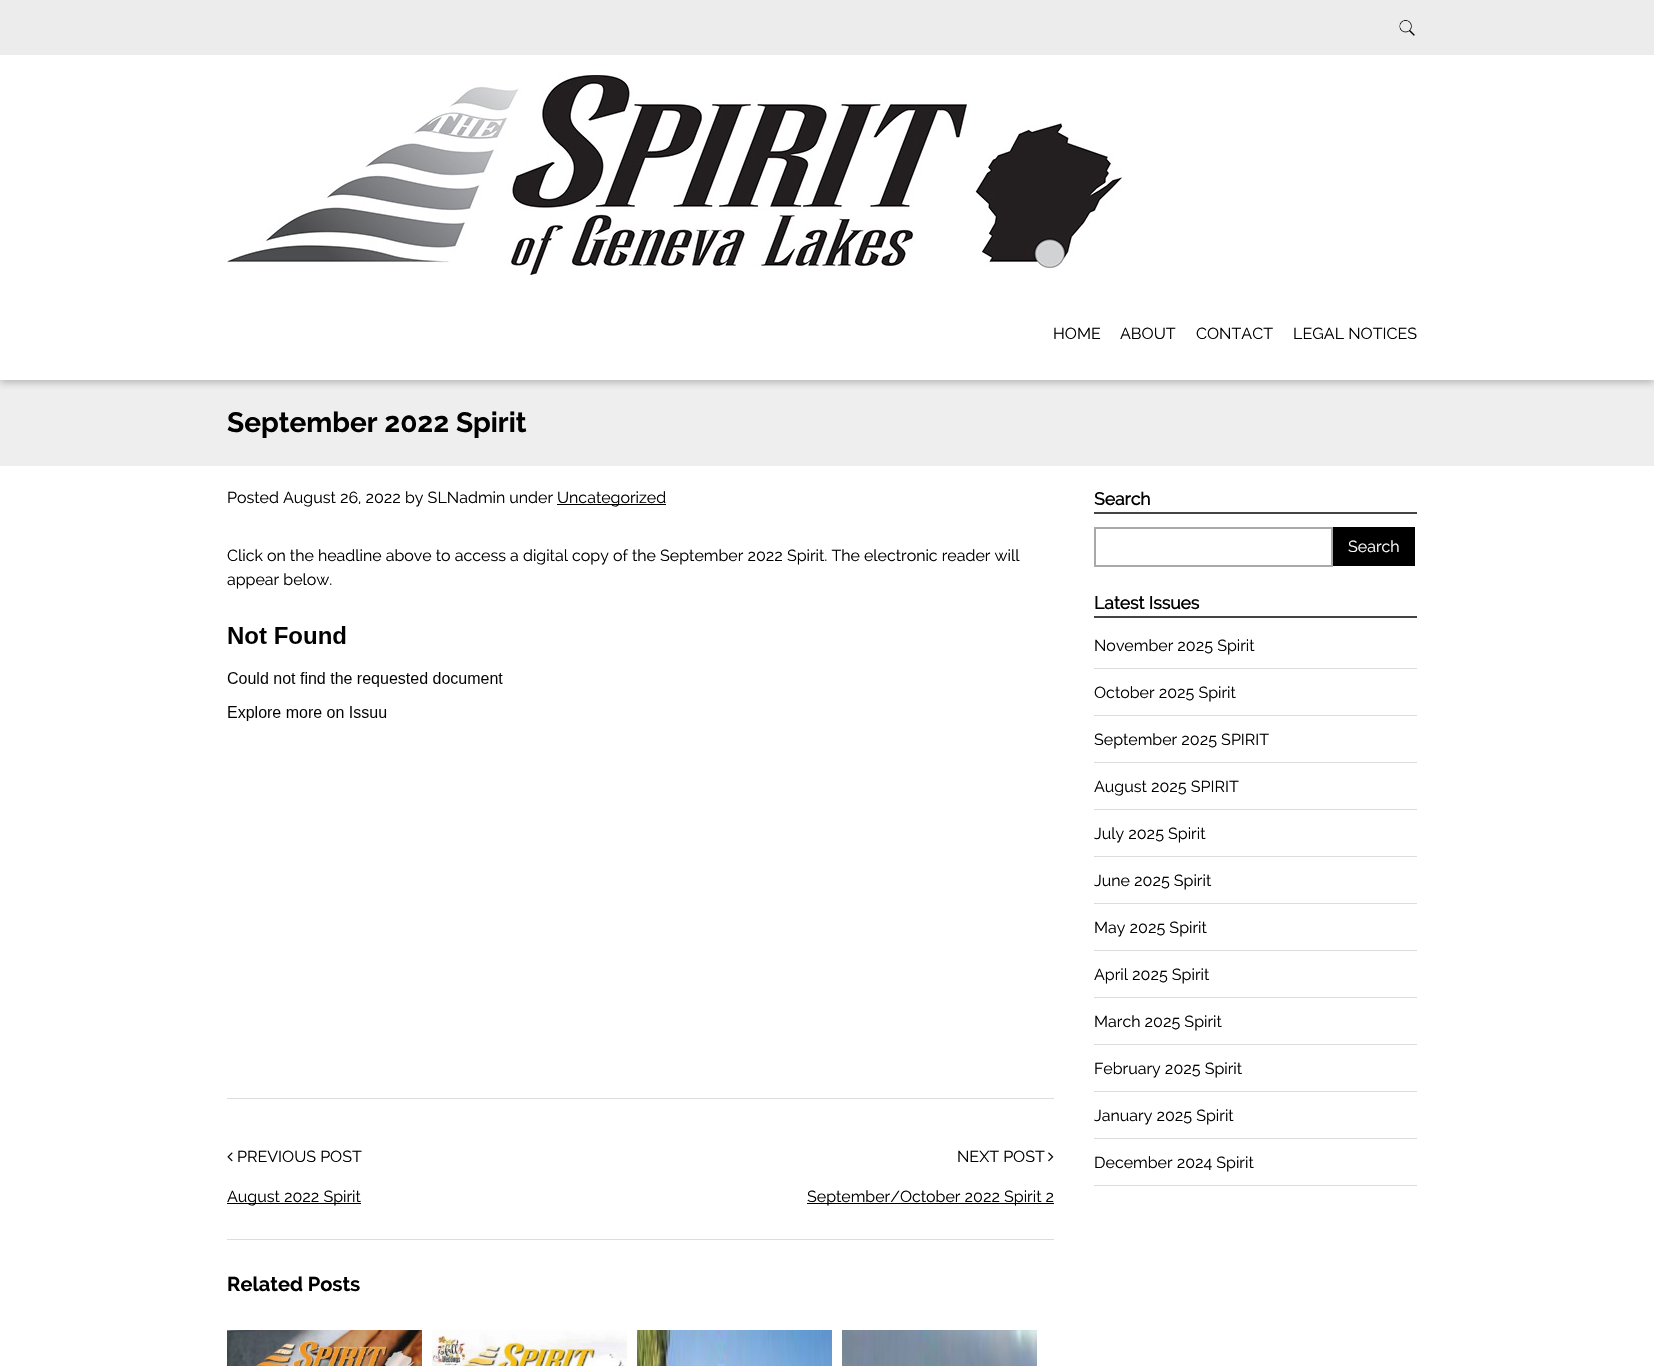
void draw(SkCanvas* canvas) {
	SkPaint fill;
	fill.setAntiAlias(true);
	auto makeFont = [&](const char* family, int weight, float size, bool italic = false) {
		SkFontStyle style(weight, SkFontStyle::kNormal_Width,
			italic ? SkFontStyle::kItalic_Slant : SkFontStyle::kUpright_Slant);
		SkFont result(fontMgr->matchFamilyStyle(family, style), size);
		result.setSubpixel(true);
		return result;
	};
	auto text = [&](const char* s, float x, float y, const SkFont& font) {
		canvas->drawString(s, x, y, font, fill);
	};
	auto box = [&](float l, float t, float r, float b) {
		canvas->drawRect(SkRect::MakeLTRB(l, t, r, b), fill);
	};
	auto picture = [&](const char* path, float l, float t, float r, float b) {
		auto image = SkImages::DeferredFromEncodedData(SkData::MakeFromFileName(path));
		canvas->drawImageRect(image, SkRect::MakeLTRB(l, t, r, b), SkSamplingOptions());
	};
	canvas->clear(0xFFFFFFFF);
	fill.setColor(0xFFEEEEEE);
	box(0, 380, 1654, 466);
	canvas->save();
	canvas->clipRect(SkRect::MakeLTRB(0, 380, 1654, 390));
	fill.setColor(0xFFAEAEAE);
	fill.setMaskFilter(SkMaskFilter::MakeBlur(kNormal_SkBlurStyle, 4));
	canvas->drawRect(SkRect::MakeLTRB(0, 2, 1654, 382), fill);
	fill.setMaskFilter(nullptr);
	canvas->restore();
	fill.setColor(0xFFECECEC);
	box(0, 0, 1654, 55);
	picture("image0.png", 1399, 20, 1415, 36);
	picture("image1.png", 227, 75, 1122, 275);
	fill.setColor(0xFF000000);
	box(557, 504, 666, 505);
	picture("image2.png", 227, 626, 503, 721);
	fill.setColor(0xFFDDDDDD);
	box(227, 1098, 1054, 1099);
	box(227, 1239, 1054, 1240);
	picture("image3.png", 227, 1152, 233, 1162);
	fill.setColor(0xFF000000);
	box(227, 1203, 361, 1204);
	picture("image4.png", 1048, 1152, 1054, 1162);
	box(807, 1203, 1054, 1204);
	picture("image5.png", 227, 1330, 422, 1366);
	picture("image6.png", 432, 1330, 627, 1366);
	picture("image7.png", 637, 1330, 832, 1366);
	picture("image8.png", 842, 1330, 1037, 1366);
	fill.setColor(0xFF444444);
	box(1094, 512, 1417, 514);
	fill.setStyle(SkPaint::kStroke_Style);
	fill.setStrokeWidth(2);
	fill.setColor(0xFFA9A9A9);
	canvas->drawRect(SkRect::MakeLTRB(1095, 528, 1332, 566), fill);
	fill.setStyle(SkPaint::kFill_Style);
	fill.setColor(0xFF000000);
	box(1333, 527, 1415, 566);
	fill.setColor(0xFF444444);
	box(1094, 616, 1417, 618);
	fill.setColor(0xFFDDDDDD);
	box(1094, 668, 1417, 669);
	box(1094, 715, 1417, 716);
	box(1094, 762, 1417, 763);
	box(1094, 809, 1417, 810);
	box(1094, 856, 1417, 857);
	box(1094, 903, 1417, 904);
	box(1094, 950, 1417, 951);
	box(1094, 997, 1417, 998);
	box(1094, 1044, 1417, 1045);
	box(1094, 1091, 1417, 1092);
	box(1094, 1138, 1417, 1139);
	box(1094, 1185, 1417, 1186);
	auto font1 = makeFont("Raleway", 400, 16);
	fill.setColor(0xFF000000);
	text("HOME", 1053, 339, font1);
	text("ABOUT", 1120, 339, font1);
	text("CONTACT", 1196, 339, font1);
	text("LEGAL NOTICES", 1293, 339, font1);
	auto font2 = makeFont("Raleway", 700, 28);
	text("September 2022 Spirit", 227, 432, font2);
	text("Posted August 26, 2022 by SLNadmin under", 227, 503, font1);
	text("Uncategorized", 557, 503, font1);
	text("Click on the headline above to access a digital copy of the September 2022 Spirit. The electronic reader will", 227, 561, font1);
	text("appear below.", 227, 585, font1);
	text("PREVIOUS POST", 237, 1162, font1);
	text("August 2022 Spirit", 227, 1202, font1);
	text("NEXT POST", 957, 1162, font1);
	text("September/October 2022 Spirit 2", 807, 1202, font1);
	auto font3 = makeFont("Raleway", 700, 20);
	text("Related Posts", 227, 1291, font3);
	auto font4 = makeFont("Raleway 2", 700, 17.5f);
	text("Search", 1094, 505, font4);
	fill.setColor(0xFFFFFFFF);
	text("Search", 1348, 552, font1);
	fill.setColor(0xFF000000);
	text("Latest Issues", 1094, 609, font4);
	text("November 2025 Spirit", 1094, 651, font1);
	text("October 2025 Spirit", 1094, 698, font1);
	text("September 2025 SPIRIT", 1094, 745, font1);
	text("August 2025 SPIRIT", 1094, 792, font1);
	text("July 2025 Spirit", 1094, 839, font1);
	text("June 2025 Spirit", 1094, 886, font1);
	text("May 2025 Spirit", 1094, 933, font1);
	text("April 2025 Spirit", 1094, 980, font1);
	text("March 2025 Spirit", 1094, 1027, font1);
	text("February 2025 Spirit", 1094, 1074, font1);
	text("January 2025 Spirit", 1094, 1121, font1);
	text("December 2024 Spirit", 1094, 1168, font1);
}
